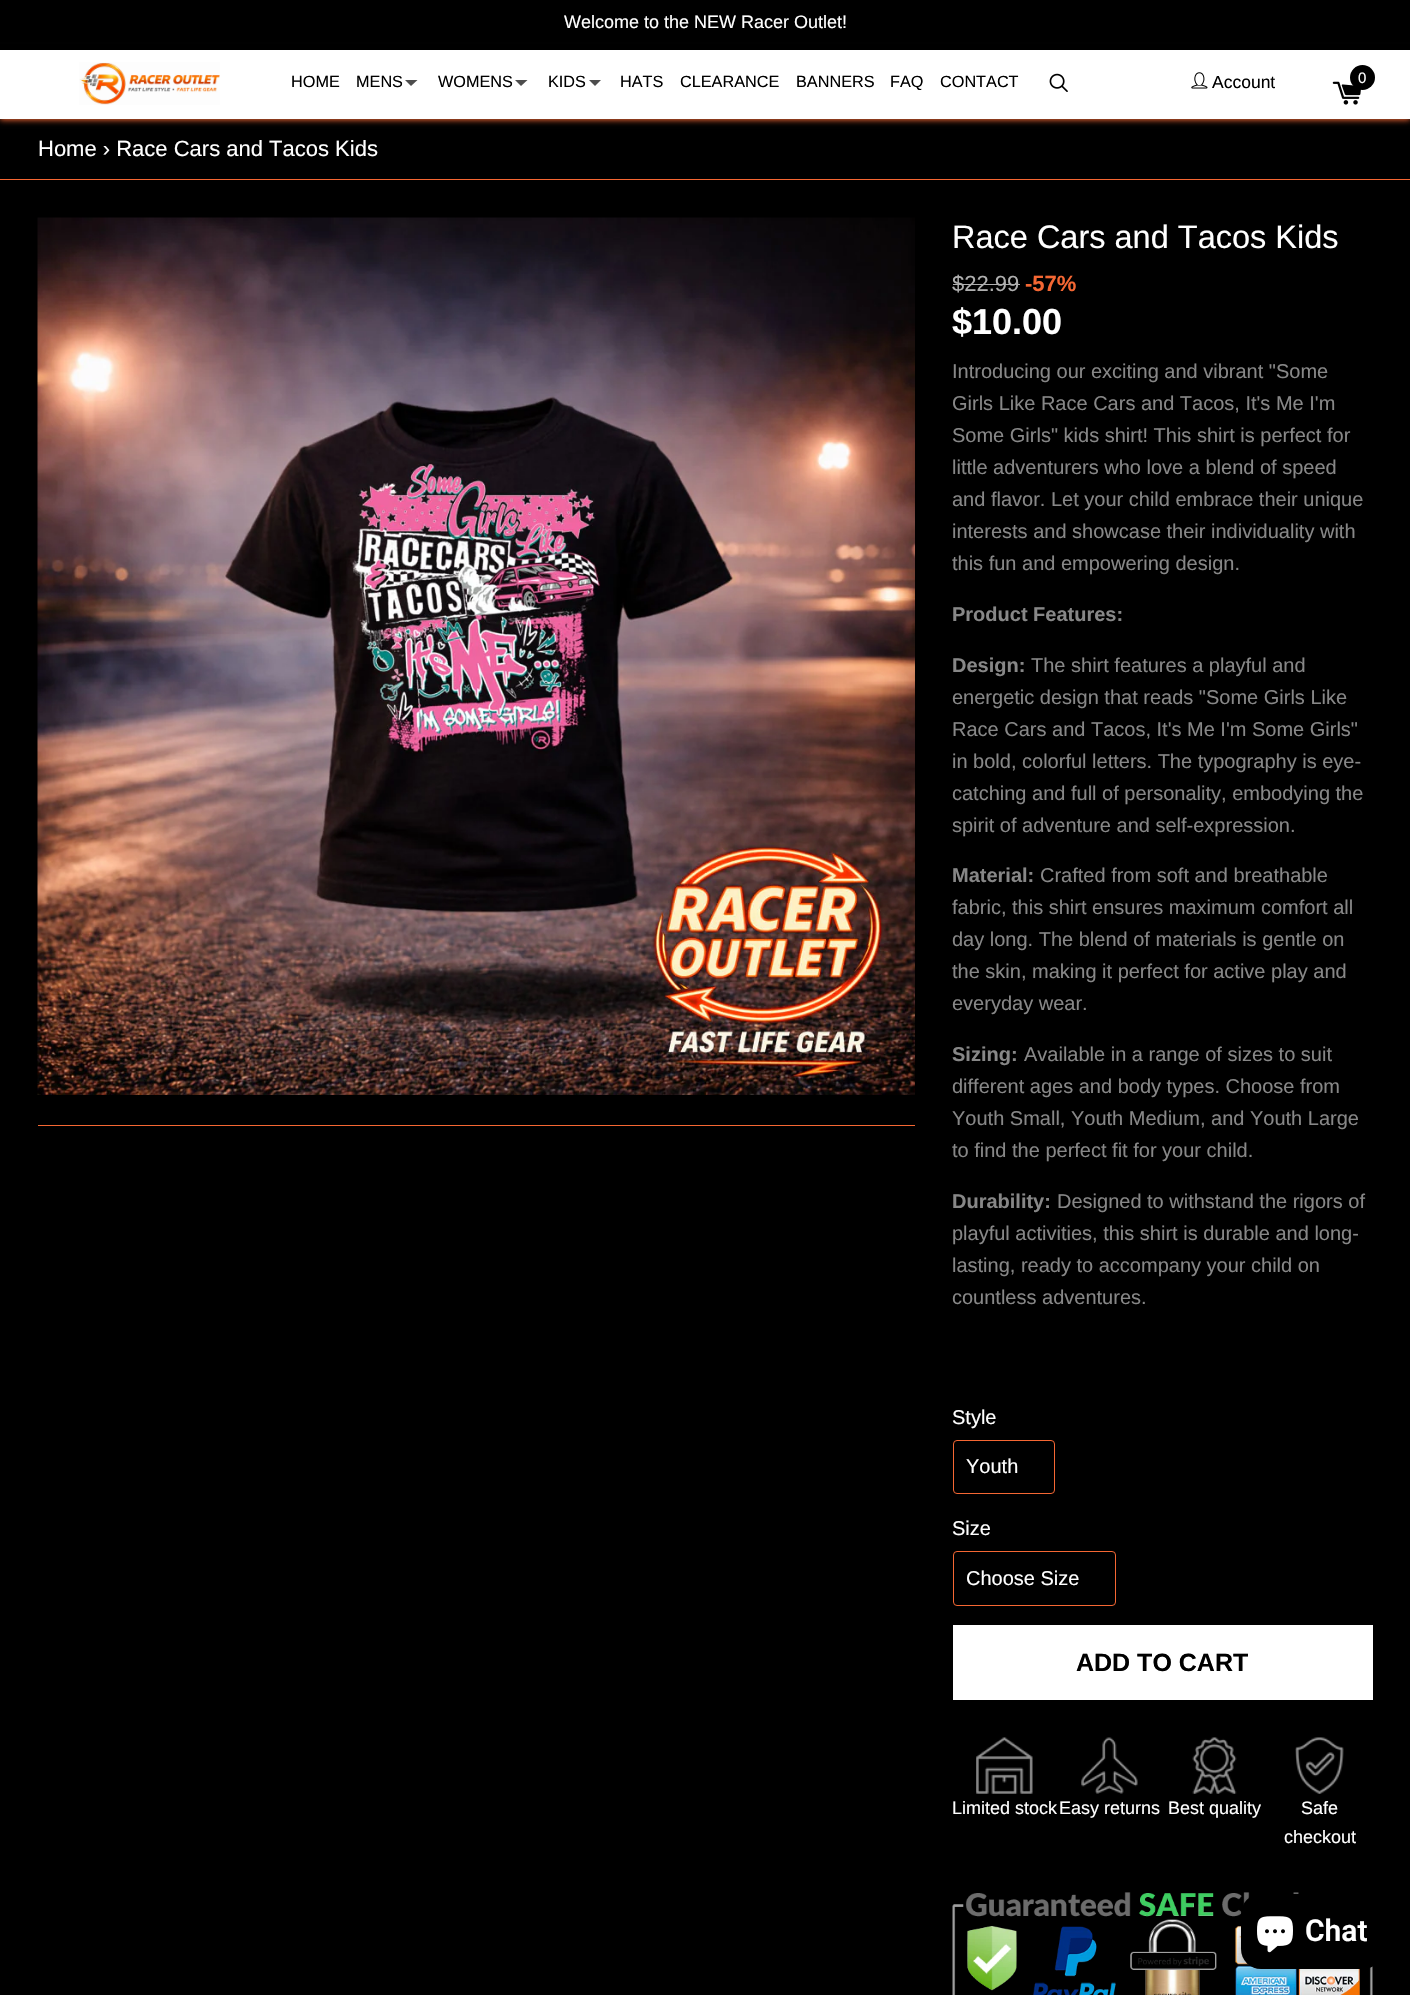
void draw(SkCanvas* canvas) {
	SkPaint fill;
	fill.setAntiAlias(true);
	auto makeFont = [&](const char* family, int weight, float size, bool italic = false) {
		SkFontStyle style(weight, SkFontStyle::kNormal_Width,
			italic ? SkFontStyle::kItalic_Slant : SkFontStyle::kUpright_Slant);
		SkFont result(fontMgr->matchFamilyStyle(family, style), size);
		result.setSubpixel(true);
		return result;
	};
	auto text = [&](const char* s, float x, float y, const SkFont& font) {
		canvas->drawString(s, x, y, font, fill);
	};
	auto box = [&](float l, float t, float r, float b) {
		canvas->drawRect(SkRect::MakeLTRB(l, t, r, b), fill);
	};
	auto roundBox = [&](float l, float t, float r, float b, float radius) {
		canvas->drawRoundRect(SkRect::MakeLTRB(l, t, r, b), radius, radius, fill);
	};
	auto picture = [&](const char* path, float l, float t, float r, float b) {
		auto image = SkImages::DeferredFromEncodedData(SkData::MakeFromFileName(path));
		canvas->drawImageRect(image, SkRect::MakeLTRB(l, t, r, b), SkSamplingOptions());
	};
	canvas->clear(0xFF000000);
	fill.setColor(0xFFF56733);
	fill.setMaskFilter(SkMaskFilter::MakeBlur(kNormal_SkBlurStyle, 3));
	canvas->drawRect(SkRect::MakeLTRB(0, 51, 1410, 120), fill);
	fill.setMaskFilter(nullptr);
	fill.setColor(0xFF000000);
	box(0, 44, 1410, 50);
	fill.setColor(0xFFFFFFFF);
	box(0, 50, 1410, 119);
	picture("image0.png", 79, 62, 220, 105);
	fill.setColor(0xFF4D4D4D);
	canvas->drawPath(SkPathBuilder().moveTo(405, 80).lineTo(417.5f, 80).lineTo(411, 86).close().detach(), fill);
	canvas->drawPath(SkPathBuilder().moveTo(515, 80).lineTo(527.5f, 80).lineTo(521, 86).close().detach(), fill);
	canvas->drawPath(SkPathBuilder().moveTo(589, 80).lineTo(601, 80).lineTo(595, 86).close().detach(), fill);
	picture("image1.png", 1049, 73, 1068, 92);
	picture("image2.png", 1191, 72, 1208, 89);
	picture("image3.png", 1332, 81, 1361, 105);
	fill.setColor(0xFF000000);
	canvas->drawCircle(1362.5f, 77.5f, 12.5f, fill);
	fill.setColor(0xFFF56733);
	box(0, 179, 1410, 180);
	picture("image4.png", 37, 217, 915, 1095);
	box(38, 1125, 915, 1126);
	fill.setColor(0xFFAFAFAF);
	box(953, 284, 1020, 285);
	fill.setStyle(SkPaint::kStroke_Style);
	fill.setStrokeWidth(1);
	fill.setColor(0xFFF56733);
	canvas->drawRoundRect(SkRect::MakeLTRB(953.5f, 1440.5f, 1054.5f, 1493.5f), 3.5f, 3.5f, fill);
	canvas->drawRoundRect(SkRect::MakeLTRB(953.5f, 1551.5f, 1115.5f, 1605.5f), 3.5f, 3.5f, fill);
	fill.setStyle(SkPaint::kFill_Style);
	fill.setColor(0xFFFFFFFF);
	box(953, 1625, 1373, 1700);
	picture("image5.png", 976, 1737, 1033, 1794);
	picture("image6.png", 1081, 1737, 1138, 1794);
	picture("image7.png", 1192, 1737, 1237, 1794);
	picture("image8.png", 1295, 1737, 1344, 1794);
	picture("image9.png", 952, 1892, 1373, 1995);
	fill.setColor(0x26000000);
	fill.setMaskFilter(SkMaskFilter::MakeBlur(kNormal_SkBlurStyle, 3));
	canvas->drawRoundRect(SkRect::MakeLTRB(1241, 1894, 1383, 1969), 20, 20, fill);
	fill.setMaskFilter(nullptr);
	fill.setColor(0xFF000000);
	roundBox(1241, 1894, 1383, 1969, 20);
	picture("image10.png", 1257, 1916, 1293, 1953);
	auto font1 = makeFont("Liberation Sans", 400, 18);
	fill.setColor(0xFFFFFFFF);
	text("Welcome to the NEW Racer Outlet!", 564, 28, font1);
	auto font2 = makeFont("Liberation Sans", 400, 16.25f);
	fill.setColor(0xFF000000);
	text("HOME", 291, 87, font2);
	text("MENS", 356, 87, font2);
	text("WOMENS", 438, 87, font2);
	text("KIDS", 548, 87, font2);
	text("HATS", 620, 87, font2);
	text("CLEARANCE", 680, 87, font2);
	text("BANNERS", 796, 87, font2);
	text("FAQ", 890, 87, font2);
	text("CONTACT", 940, 87, font2);
	auto font3 = makeFont("Liberation Sans", 400, 17.5f);
	text("Account", 1212, 88, font3);
	auto font4 = makeFont("Liberation Sans", 400, 15);
	fill.setColor(0xFFFFFFFF);
	text("0", 1358, 83, font4);
	auto font5 = makeFont("Liberation Sans", 400, 22);
	text("Home › Race Cars and Tacos Kids", 38, 156, font5);
	auto font6 = makeFont("Liberation Sans", 400, 32.5f);
	text("Race Cars and Tacos Kids", 952, 248, font6);
	fill.setColor(0xFFAFAFAF);
	text("$22.99", 952, 291, font5);
	auto font7 = makeFont("Liberation Sans", 700, 22);
	fill.setColor(0xFFF56733);
	text("-57%", 1025, 291, font7);
	auto font8 = makeFont("Liberation Sans", 700, 36);
	fill.setColor(0xFFFFFFFF);
	text("$10.00", 952, 334, font8);
	auto font9 = makeFont("Liberation Sans", 400, 20);
	fill.setColor(0xFF878787);
	text("Introducing our exciting and vibrant \"Some", 952, 378, font9);
	text("Girls Like Race Cars and Tacos, It's Me I'm", 952, 410, font9);
	text("Some Girls\" kids shirt! This shirt is perfect for", 952, 442, font9);
	text("little adventurers who love a blend of speed", 952, 474, font9);
	text("and flavor. Let your child embrace their unique", 952, 506, font9);
	text("interests and showcase their individuality with", 952, 538, font9);
	text("this fun and empowering design.", 952, 570, font9);
	auto font10 = makeFont("Liberation Sans", 700, 20);
	text("Product Features:", 952, 621, font10);
	text("Design:", 952, 672, font10);
	text("The shirt features a playful and", 1031, 672, font9);
	text("energetic design that reads \"Some Girls Like", 952, 704, font9);
	text("Race Cars and Tacos, It's Me I'm Some Girls\"", 952, 736, font9);
	text("in bold, colorful letters. The typography is eye-", 952, 768, font9);
	text("catching and full of personality, embodying the", 952, 800, font9);
	text("spirit of adventure and self-expression.", 952, 832, font9);
	text("Material:", 952, 882, font10);
	text("Crafted from soft and breathable", 1040, 882, font9);
	text("fabric, this shirt ensures maximum comfort all", 952, 914, font9);
	text("day long. The blend of materials is gentle on", 952, 946, font9);
	text("the skin, making it perfect for active play and", 952, 978, font9);
	text("everyday wear.", 952, 1010, font9);
	text("Sizing:", 952, 1061, font10);
	text("Available in a range of sizes to suit", 1024, 1061, font9);
	text("different ages and body types. Choose from", 952, 1093, font9);
	text("Youth Small, Youth Medium, and Youth Large", 952, 1125, font9);
	text("to find the perfect fit for your child.", 952, 1157, font9);
	text("Durability:", 952, 1208, font10);
	text("Designed to withstand the rigors of", 1057, 1208, font9);
	text("playful activities, this shirt is durable and long-", 952, 1240, font9);
	text("lasting, ready to accompany your child on", 952, 1272, font9);
	text("countless adventures.", 952, 1304, font9);
	fill.setColor(0xFFFFFFFF);
	text("Style", 952, 1424, font9);
	text("Youth", 966, 1473, font9);
	text("Size", 952, 1535, font9);
	text("Choose Size", 966, 1585, font9);
	auto font11 = makeFont("Liberation Sans", 700, 25);
	fill.setColor(0xFF000000);
	text("ADD TO CART", 1076, 1671, font11);
	fill.setColor(0xFFFFFFFF);
	text("Limited stock", 952, 1814, font1);
	text("Easy returns", 1059, 1814, font1);
	text("Best quality", 1168, 1814, font1);
	text("Safe", 1301, 1814, font1);
	text("checkout", 1284, 1843, font1);
	auto font12 = makeFont("Roboto", 600, 30);
	text("Chat", 1305, 1941, font12);
}
